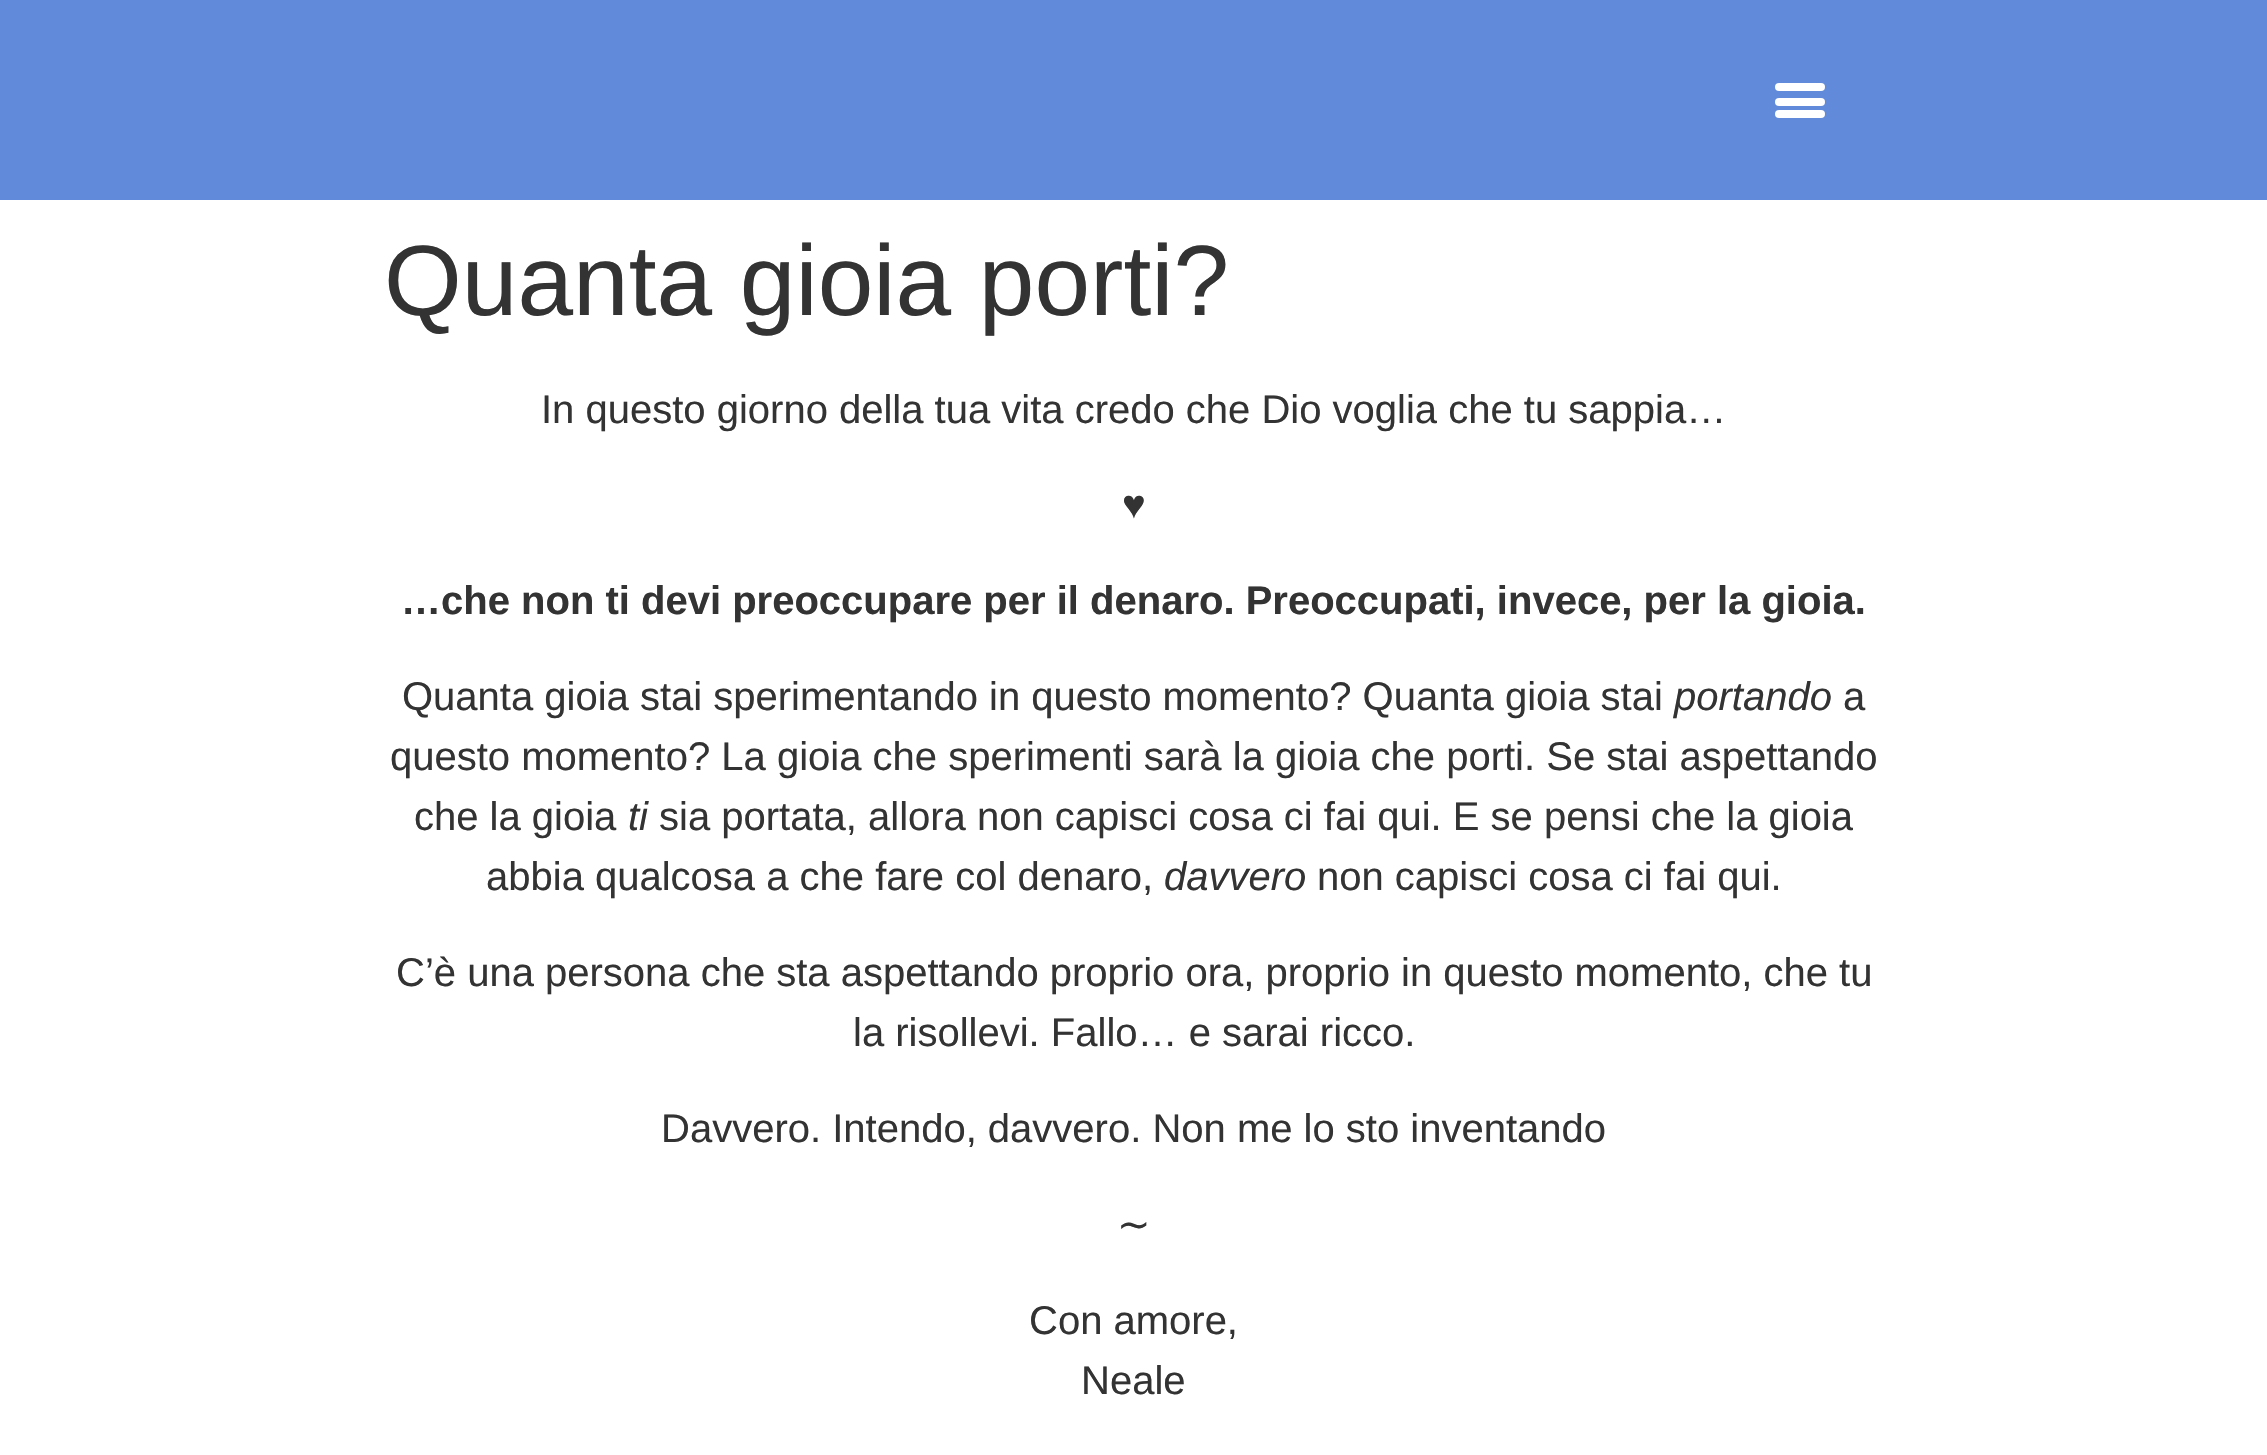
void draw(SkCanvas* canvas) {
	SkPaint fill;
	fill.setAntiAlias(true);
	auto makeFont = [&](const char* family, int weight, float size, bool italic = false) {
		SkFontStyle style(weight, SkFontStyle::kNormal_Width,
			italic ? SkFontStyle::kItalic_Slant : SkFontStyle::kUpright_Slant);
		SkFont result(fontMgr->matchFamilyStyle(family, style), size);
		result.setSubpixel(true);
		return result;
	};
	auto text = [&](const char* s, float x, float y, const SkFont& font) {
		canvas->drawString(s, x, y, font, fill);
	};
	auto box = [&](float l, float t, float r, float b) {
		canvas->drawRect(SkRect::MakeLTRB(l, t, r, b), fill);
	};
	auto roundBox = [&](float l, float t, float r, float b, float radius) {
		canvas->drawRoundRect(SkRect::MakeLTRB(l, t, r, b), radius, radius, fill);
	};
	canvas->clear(0xFFFFFFFF);
	fill.setColor(0xFF628ADB);
	box(0, 0, 2267, 200);
	fill.setColor(0xFFFFFFFF);
	roundBox(1775, 98, 1825, 106, 4);
	roundBox(1775, 83, 1825, 91, 4);
	roundBox(1775, 110, 1825, 118, 4);
	auto font1 = makeFont("Liberation Sans", 400, 100);
	fill.setColor(0xFF333333);
	text("Quanta gioia porti?", 384, 315, font1);
	auto font2 = makeFont("Liberation Sans", 400, 40);
	text("In questo giorno della tua vita credo che Dio voglia che tu sappia…", 541, 423, font2);
	text("♥", 1122, 518, font2);
	auto font3 = makeFont("Liberation Sans", 700, 40);
	text("…che non ti devi preoccupare per il denaro. Preoccupati, invece, per la gioia.", 401, 614, font3);
	text("Quanta gioia stai sperimentando in questo momento? Quanta gioia stai", 402, 710, font2);
	auto font4 = makeFont("Liberation Sans", 400, 40, true);
	text("portando", 1674, 710, font4);
	text("a", 1843, 710, font2);
	text("questo momento? La gioia che sperimenti sarà la gioia che porti. Se stai aspettando", 390, 770, font2);
	text("che la gioia", 414, 830, font2);
	text("ti", 628, 830, font4);
	text("sia portata, allora non capisci cosa ci fai qui. E se pensi che la gioia", 659, 830, font2);
	text("abbia qualcosa a che fare col denaro,", 486, 890, font2);
	text("davvero", 1164, 890, font4);
	text("non capisci cosa ci fai qui.", 1317, 890, font2);
	text("C’è una persona che sta aspettando proprio ora, proprio in questo momento, che tu", 396, 986, font2);
	text("la risollevi. Fallo… e sarai ricco.", 853, 1046, font2);
	text("Davvero. Intendo, davvero. Non me lo sto inventando", 661, 1142, font2);
	auto font5 = makeFont("DejaVu Sans", 400, 40);
	text("∼", 1117, 1238, font5);
	text("Con amore,", 1029, 1334, font2);
	text("Neale", 1081, 1394, font2);
}
